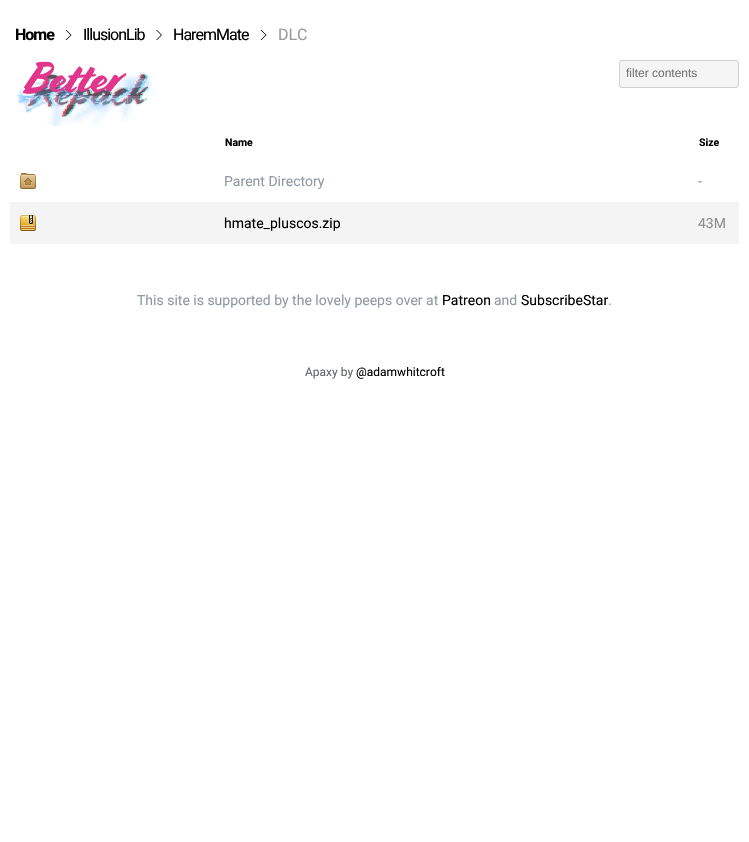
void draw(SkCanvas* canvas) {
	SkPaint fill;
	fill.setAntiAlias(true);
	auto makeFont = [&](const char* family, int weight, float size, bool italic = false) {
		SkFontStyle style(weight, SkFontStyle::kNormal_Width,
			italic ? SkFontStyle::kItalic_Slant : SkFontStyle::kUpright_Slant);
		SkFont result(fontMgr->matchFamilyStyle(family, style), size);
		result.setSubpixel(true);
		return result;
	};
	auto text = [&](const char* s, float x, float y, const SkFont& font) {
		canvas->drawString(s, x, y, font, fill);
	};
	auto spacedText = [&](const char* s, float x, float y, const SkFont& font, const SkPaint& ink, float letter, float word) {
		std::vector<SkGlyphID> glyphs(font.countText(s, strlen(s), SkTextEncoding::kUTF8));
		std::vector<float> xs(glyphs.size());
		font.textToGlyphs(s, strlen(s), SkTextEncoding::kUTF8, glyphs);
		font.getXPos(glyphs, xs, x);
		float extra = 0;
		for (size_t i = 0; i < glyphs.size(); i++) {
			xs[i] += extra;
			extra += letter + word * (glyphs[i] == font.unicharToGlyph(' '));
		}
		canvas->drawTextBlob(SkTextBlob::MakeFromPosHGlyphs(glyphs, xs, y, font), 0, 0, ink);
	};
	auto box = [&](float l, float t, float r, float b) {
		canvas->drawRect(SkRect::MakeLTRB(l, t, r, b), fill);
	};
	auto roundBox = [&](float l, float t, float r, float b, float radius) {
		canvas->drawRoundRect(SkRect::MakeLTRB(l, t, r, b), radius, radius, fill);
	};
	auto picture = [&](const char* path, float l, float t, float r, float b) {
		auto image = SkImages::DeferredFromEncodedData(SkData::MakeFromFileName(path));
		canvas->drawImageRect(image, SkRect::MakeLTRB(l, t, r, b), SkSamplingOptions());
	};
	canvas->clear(0xFFFFFFFF);
	fill.setColor(0xFF000000);
	canvas->drawPath(SkPathBuilder().moveTo(65.5f, 30).lineTo(66.5f, 30).lineTo(71.5f, 35).lineTo(70.5f, 35).close().moveTo(70.5f, 35).lineTo(71.5f, 35).lineTo(66.5f, 40).lineTo(65.5f, 40).close().detach(), fill);
	canvas->drawPath(SkPathBuilder().moveTo(156, 30).lineTo(157, 30).lineTo(162, 35).lineTo(161, 35).close().moveTo(161, 35).lineTo(162, 35).lineTo(157, 40).lineTo(156, 40).close().detach(), fill);
	canvas->drawPath(SkPathBuilder().moveTo(260.5f, 30).lineTo(261.5f, 30).lineTo(266.5f, 35).lineTo(265.5f, 35).close().moveTo(265.5f, 35).lineTo(266.5f, 35).lineTo(261.5f, 40).lineTo(260.5f, 40).close().detach(), fill);
	picture("image0.png", 16, 61, 153, 126);
	fill.setColor(0xFFF5F5F5);
	roundBox(619, 60, 739, 88, 3);
	fill.setStyle(SkPaint::kStroke_Style);
	fill.setStrokeWidth(1);
	fill.setColor(0x26000000);
	canvas->drawRoundRect(SkRect::MakeLTRB(619.5f, 60.5f, 738.5f, 87.5f), 2.5f, 2.5f, fill);
	picture("image1.png", 20, 173, 36, 189);
	fill.setStyle(SkPaint::kFill_Style);
	fill.setColor(0xFFF4F4F4);
	box(10, 202, 739, 244);
	picture("image2.png", 20, 215, 36, 231);
	auto font1 = makeFont("Roboto", 700, 16);
	fill.setColor(0xFF000000);
	spacedText("Home", 15, 40, font1, fill, -1, 0);
	auto font2 = makeFont("Roboto", 400, 16);
	spacedText("IllusionLib", 83, 40, font2, fill, -1, 0);
	spacedText("HaremMate", 173, 40, font2, fill, -1, 0);
	fill.setColor(0xFF9A9A9A);
	text("DLC", 278, 40, font2);
	auto font3 = makeFont("Liberation Sans", 400, 12);
	fill.setColor(0xFF757575);
	text("filter contents", 626, 77, font3);
	auto font4 = makeFont("Roboto", 700, 10.5f);
	fill.setColor(0xFF000000);
	text("Name", 225, 146, font4);
	text("Size", 699, 146, font4);
	auto font5 = makeFont("Roboto", 400, 14);
	fill.setColor(0xFF9099A3);
	text("Parent Directory", 224, 186, font5);
	fill.setColor(0xFF8F8F8F);
	text("-", 698, 186, font5);
	fill.setColor(0xFF000000);
	text("hmate_pluscos.zip", 224, 228, font5);
	fill.setColor(0xFF8F8F8F);
	text("43M", 698, 228, font5);
	fill.setColor(0xFF9099A3);
	text("This site is supported by the lovely peeps over at", 137, 305, font5);
	fill.setColor(0xFF000000);
	text("Patreon", 442, 305, font5);
	fill.setColor(0xFF9099A3);
	text("and", 494, 305, font5);
	fill.setColor(0xFF000000);
	text("SubscribeStar", 521, 305, font5);
	fill.setColor(0xFF9099A3);
	text(".", 608, 305, font5);
	auto font6 = makeFont("Roboto", 400, 12);
	fill.setColor(0xFF61666C);
	text("Apaxy by", 305, 376, font6);
	fill.setColor(0xFF000000);
	text("@adamwhitcroft", 356, 376, font6);
}
